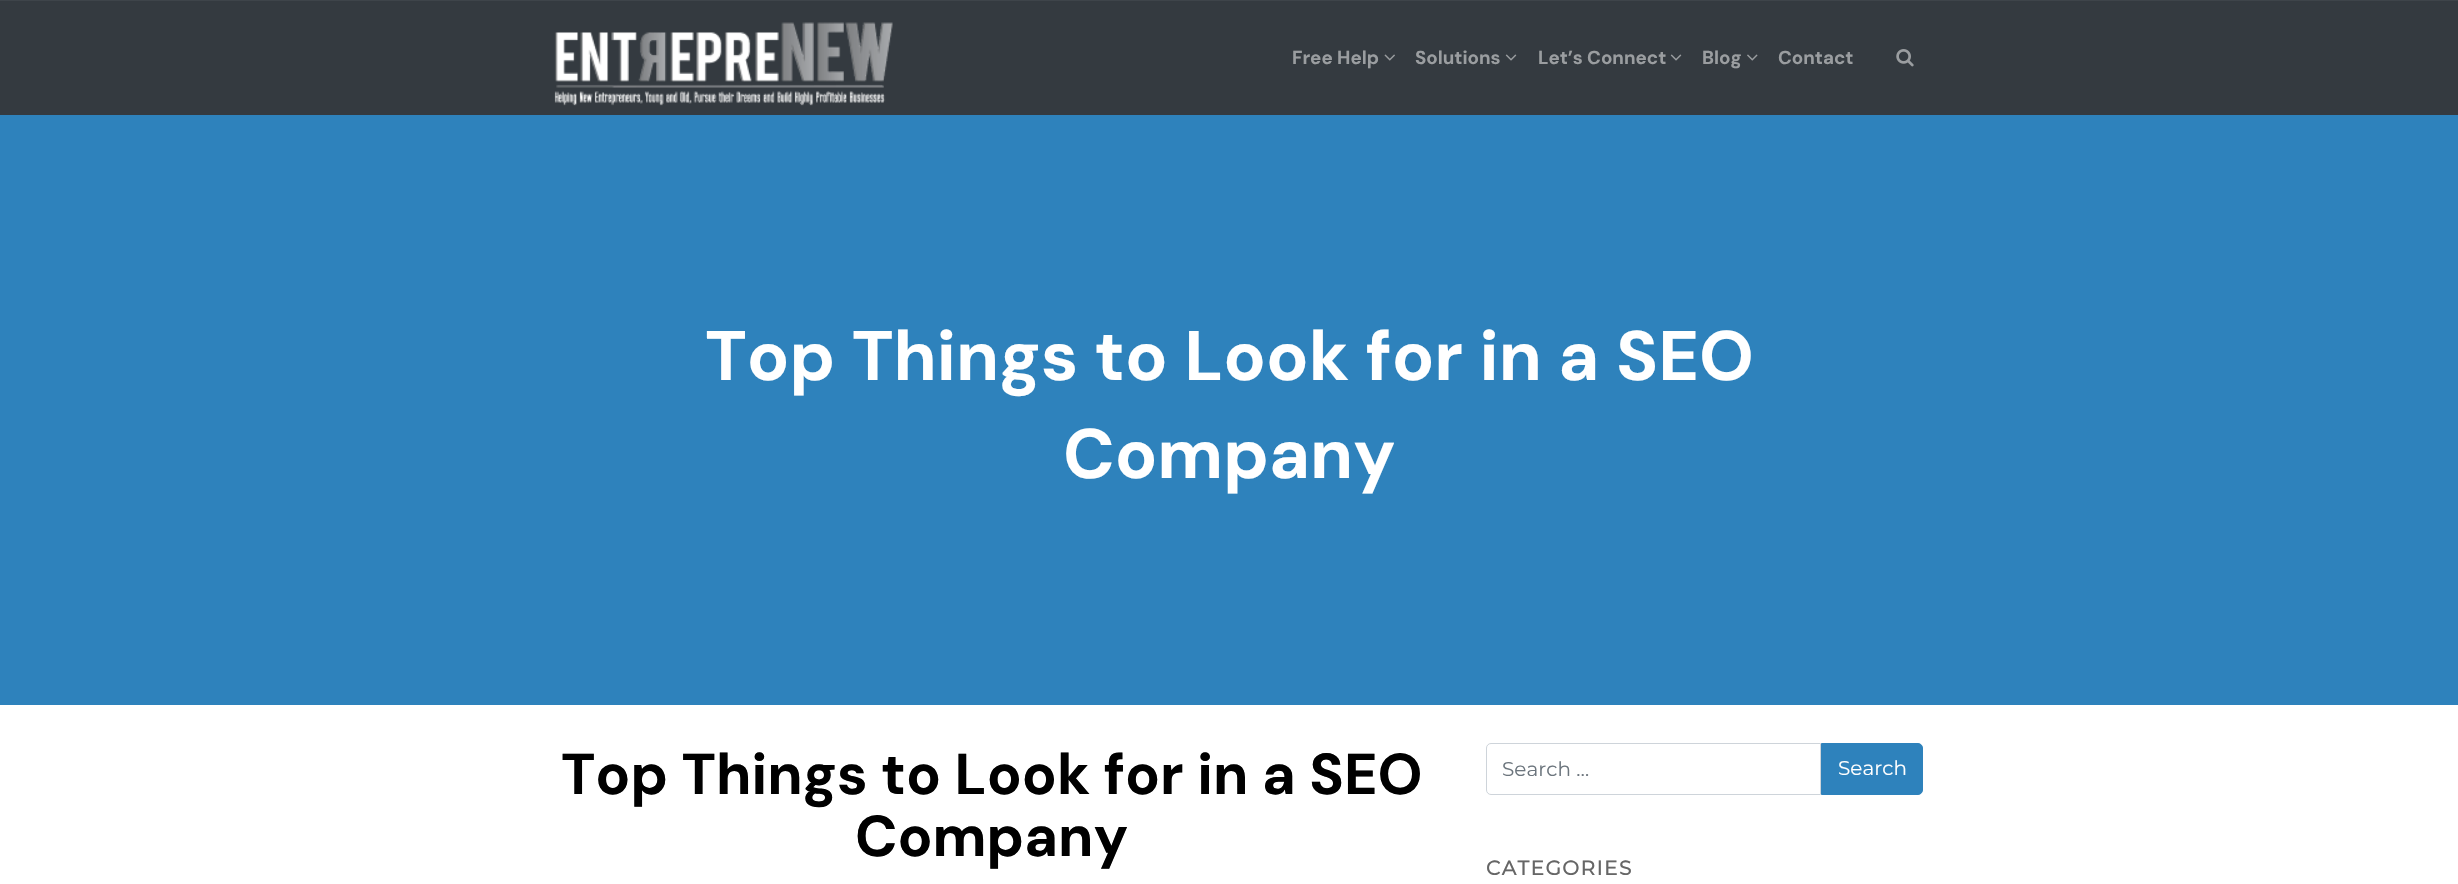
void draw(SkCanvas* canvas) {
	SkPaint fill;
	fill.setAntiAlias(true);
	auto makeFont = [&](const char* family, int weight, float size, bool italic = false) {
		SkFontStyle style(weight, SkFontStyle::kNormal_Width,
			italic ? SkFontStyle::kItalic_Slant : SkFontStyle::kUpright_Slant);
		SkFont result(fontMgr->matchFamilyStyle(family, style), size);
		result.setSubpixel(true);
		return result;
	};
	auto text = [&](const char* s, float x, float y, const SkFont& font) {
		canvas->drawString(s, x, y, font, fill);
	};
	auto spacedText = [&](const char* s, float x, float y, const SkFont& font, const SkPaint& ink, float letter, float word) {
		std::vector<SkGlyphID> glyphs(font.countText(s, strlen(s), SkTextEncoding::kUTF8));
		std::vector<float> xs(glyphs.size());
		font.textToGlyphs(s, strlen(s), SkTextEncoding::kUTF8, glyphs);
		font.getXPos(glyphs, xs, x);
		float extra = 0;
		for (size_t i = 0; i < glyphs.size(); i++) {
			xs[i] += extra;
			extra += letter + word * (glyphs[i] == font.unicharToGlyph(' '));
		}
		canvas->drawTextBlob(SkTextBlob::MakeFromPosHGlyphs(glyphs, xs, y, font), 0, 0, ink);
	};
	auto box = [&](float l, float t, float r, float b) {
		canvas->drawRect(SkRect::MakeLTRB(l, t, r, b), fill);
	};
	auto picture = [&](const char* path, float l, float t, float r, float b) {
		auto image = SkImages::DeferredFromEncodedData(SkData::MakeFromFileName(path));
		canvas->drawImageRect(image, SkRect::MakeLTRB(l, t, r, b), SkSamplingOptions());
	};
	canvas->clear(0xFFFFFFFF);
	fill.setColor(0xFF3E444A);
	box(0, 0, 2458, 1);
	fill.setColor(0xFF343A40);
	box(0, 1, 2458, 115);
	picture("image0.png", 554, 22, 893, 106);
	picture("image1.png", 1384, 54, 1395, 61);
	picture("image2.png", 1505, 54, 1517, 61);
	picture("image2.png", 1670, 54, 1682, 61);
	picture("image3.png", 1747, 54, 1758, 61);
	picture("image4.png", 1896, 49, 1914, 67);
	fill.setColor(0xFF2E82BC);
	box(0, 115, 2458, 705);
	fill.setStyle(SkPaint::kStroke_Style);
	fill.setStrokeWidth(1);
	fill.setColor(0xFFCED4DA);
	canvas->drawPath(SkPathBuilder().moveTo(1491, 743.5f).lineTo(1820.5f, 743.5f).lineTo(1820.5f, 794.5f).lineTo(1491, 794.5f).cubicTo(1488.5f, 794.5f, 1486.5f, 792.5f, 1486.5f, 790).lineTo(1486.5f, 748).cubicTo(1486.5f, 745.5f, 1488.5f, 743.5f, 1491, 743.5f).close().detach(), fill);
	fill.setStyle(SkPaint::kFill_Style);
	fill.setColor(0xFF2E82BC);
	canvas->drawPath(SkPathBuilder().moveTo(1821.5f, 743.5f).lineTo(1918, 743.5f).cubicTo(1920.5f, 743.5f, 1922.5f, 745.5f, 1922.5f, 748).lineTo(1922.5f, 790).cubicTo(1922.5f, 792.5f, 1920.5f, 794.5f, 1918, 794.5f).lineTo(1821.5f, 794.5f).close().detach(), fill);
	fill.setStyle(SkPaint::kStroke_Style);
	canvas->drawPath(SkPathBuilder().moveTo(1821.5f, 743.5f).lineTo(1918, 743.5f).cubicTo(1920.5f, 743.5f, 1922.5f, 745.5f, 1922.5f, 748).lineTo(1922.5f, 790).cubicTo(1922.5f, 792.5f, 1920.5f, 794.5f, 1918, 794.5f).lineTo(1821.5f, 794.5f).close().detach(), fill);
	auto font1 = makeFont("DM Sans", 700, 18.75f);
	fill.setStyle(SkPaint::kFill_Style);
	fill.setColor(0xFF9A9DA0);
	text("Free Help", 1292, 64, font1);
	text("Solutions", 1415, 64, font1);
	text("Let’s Connect", 1538, 64, font1);
	text("Blog", 1702, 64, font1);
	text("Contact", 1778, 64, font1);
	auto font2 = makeFont("DM Sans", 700, 70);
	fill.setColor(0xFFFFFFFF);
	text("Top Things to Look for in a SEO", 705, 380, font2);
	text("Company", 1063, 478, font2);
	auto font3 = makeFont("DM Sans", 700, 57.5f);
	fill.setColor(0xFF000000);
	text("Top Things to Look for in a SEO", 561, 794, font3);
	text("Company", 855, 856, font3);
	auto font4 = makeFont("Montserrat", 100, 20);
	fill.setColor(0xFF6C757D);
	text("Search …", 1502, 776, font4);
	fill.setColor(0xFFFFFFFF);
	text("Search", 1838, 775, font4);
	auto font5 = makeFont("Montserrat", 700, 20);
	fill.setColor(0xFF666666);
	spacedText("CATEGORIES", 1486, 875, font5, fill, 1.5f, 0);
}
